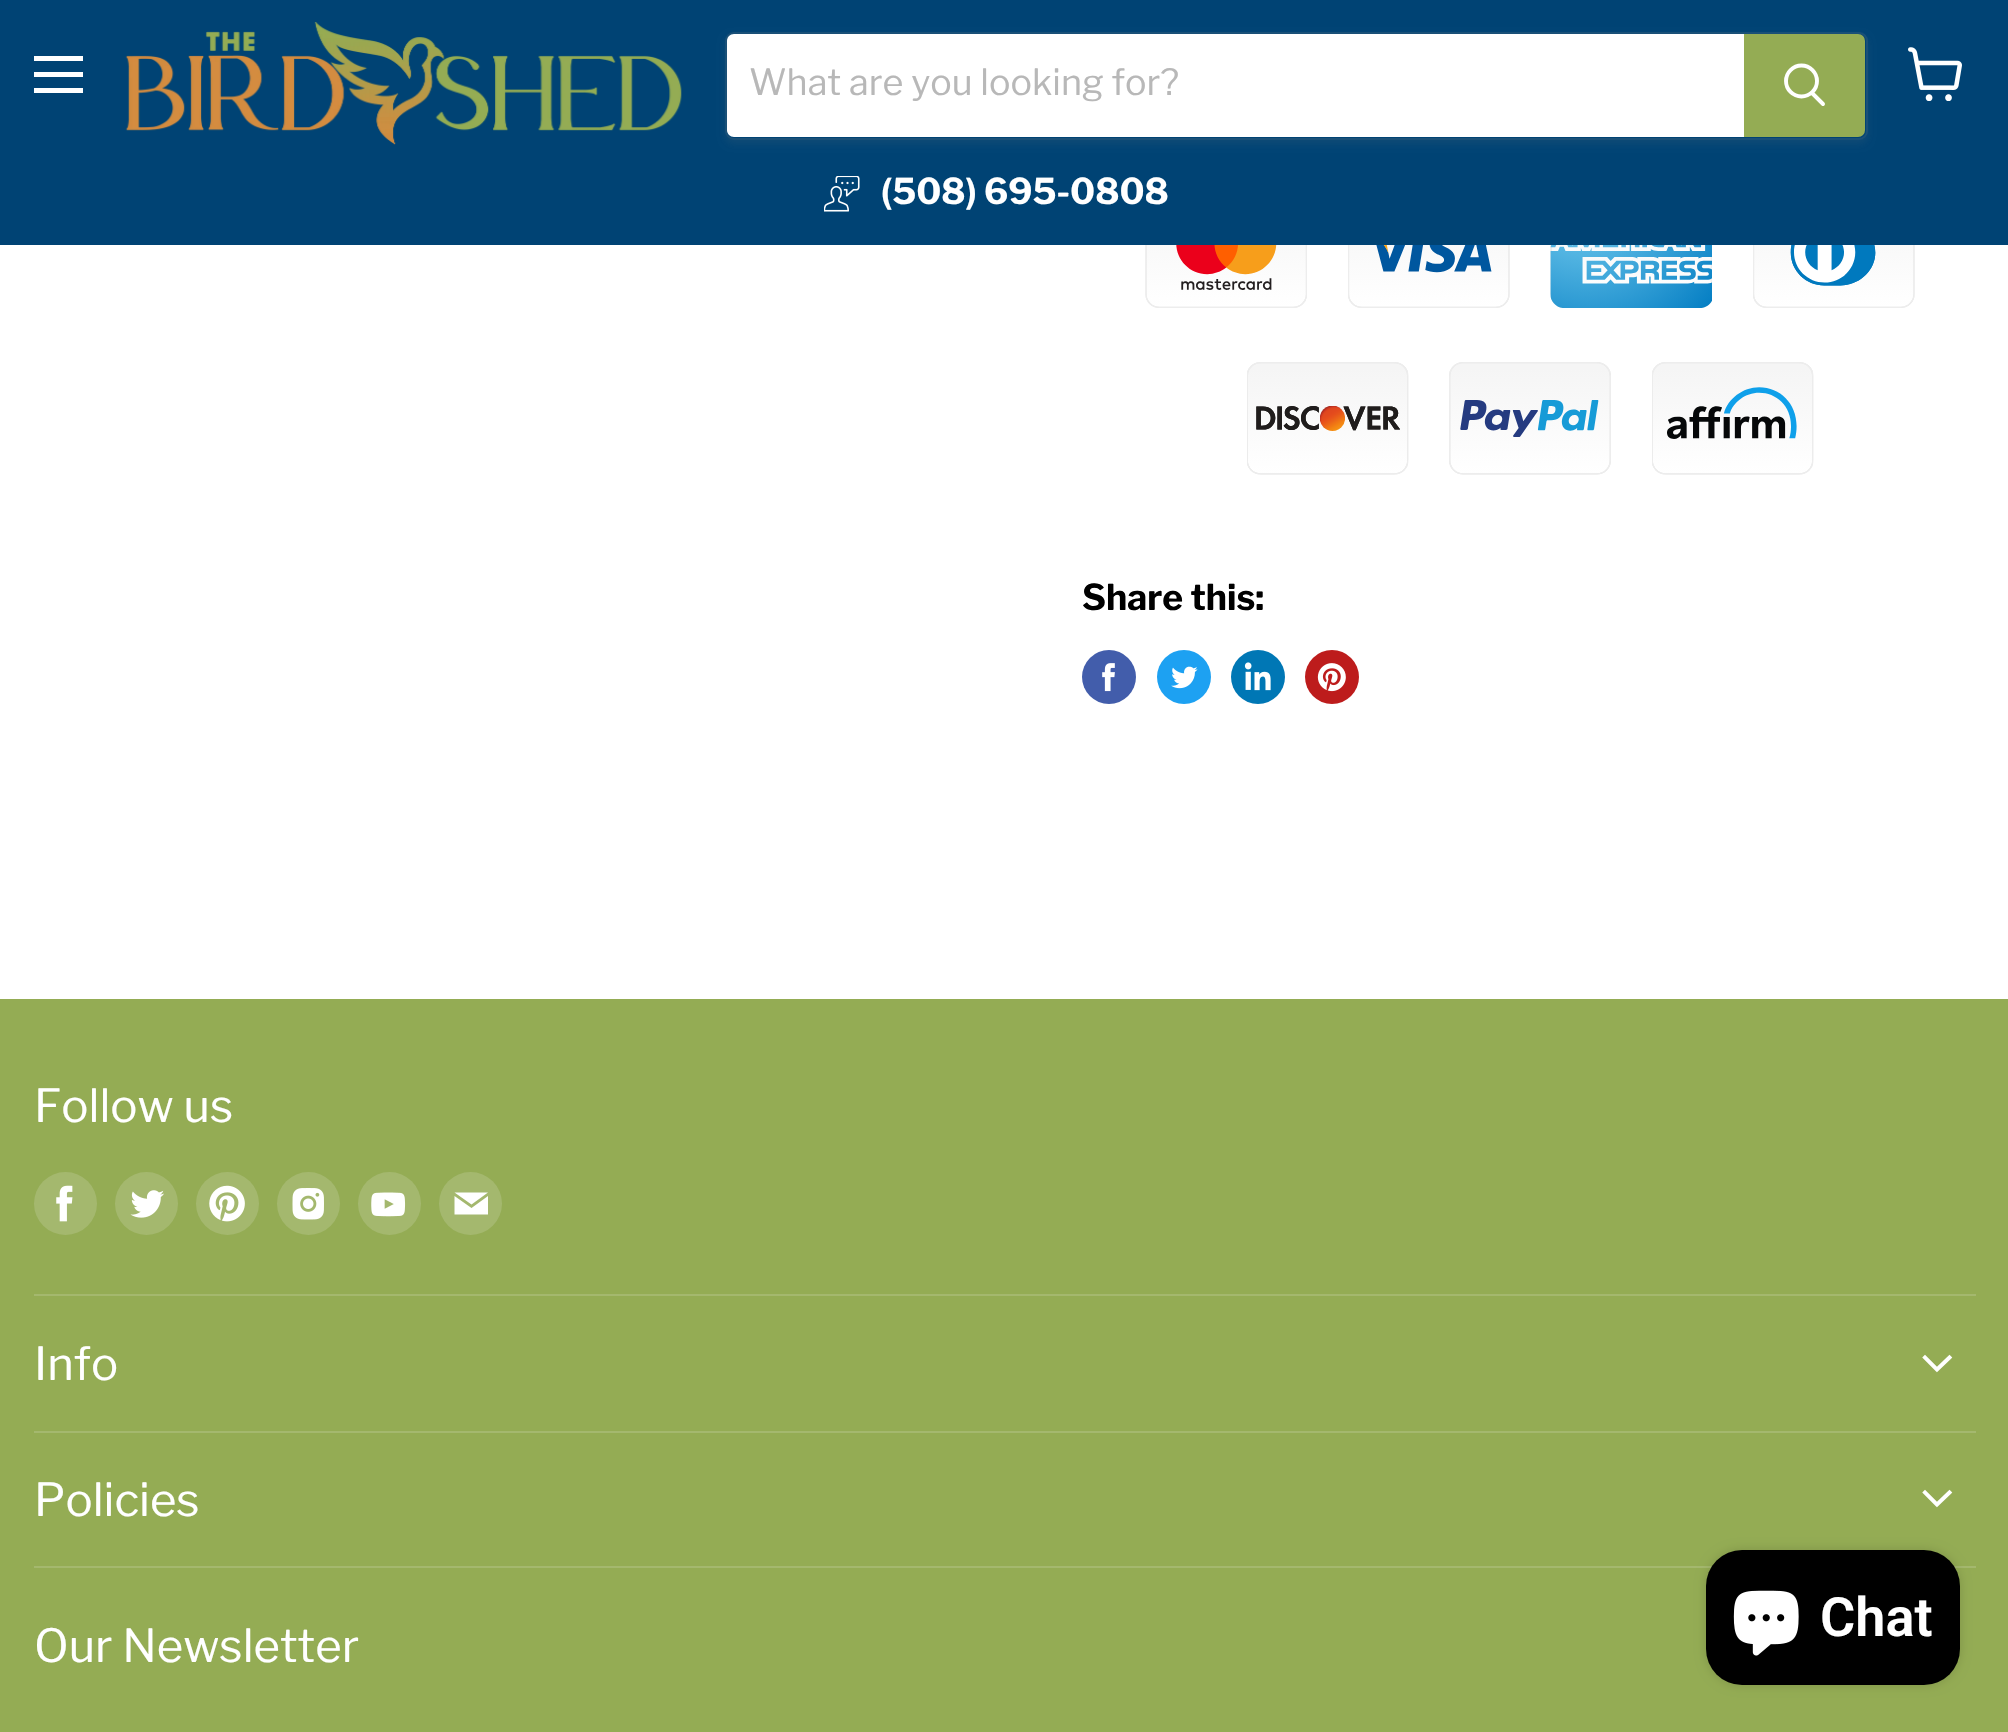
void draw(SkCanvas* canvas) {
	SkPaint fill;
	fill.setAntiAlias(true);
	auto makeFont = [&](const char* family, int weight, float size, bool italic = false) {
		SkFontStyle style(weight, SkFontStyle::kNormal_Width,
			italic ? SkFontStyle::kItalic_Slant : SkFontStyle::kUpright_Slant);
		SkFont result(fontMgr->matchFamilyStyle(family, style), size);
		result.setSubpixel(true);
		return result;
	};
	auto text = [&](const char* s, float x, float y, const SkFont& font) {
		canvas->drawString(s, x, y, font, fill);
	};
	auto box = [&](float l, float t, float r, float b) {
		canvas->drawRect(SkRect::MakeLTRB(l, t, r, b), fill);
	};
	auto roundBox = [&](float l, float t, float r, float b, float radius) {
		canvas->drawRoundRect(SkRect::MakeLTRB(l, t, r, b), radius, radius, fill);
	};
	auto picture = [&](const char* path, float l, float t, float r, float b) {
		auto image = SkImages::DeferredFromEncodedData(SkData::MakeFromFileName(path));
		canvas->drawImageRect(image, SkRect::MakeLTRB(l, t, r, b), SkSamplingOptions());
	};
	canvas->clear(0xFFFFFFFF);
	fill.setColor(0xFF004374);
	box(0, 0, 2008, 245);
	fill.setColor(0xFFFFFFFF);
	box(34, 56, 83, 61);
	box(34, 72, 83, 77);
	box(34, 88, 83, 93);
	picture("image0.png", 125, 22, 682, 145);
	canvas->save();
	canvas->clipPath(SkPathBuilder(SkPathFillType::kEvenOdd).moveTo(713, 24).lineTo(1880, 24).lineTo(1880, 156).lineTo(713, 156).close().moveTo(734, 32).lineTo(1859, 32).cubicTo(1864, 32, 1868, 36, 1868, 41).lineTo(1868, 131).cubicTo(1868, 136, 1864, 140, 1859, 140).lineTo(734, 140).cubicTo(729, 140, 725, 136, 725, 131).lineTo(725, 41).cubicTo(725, 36, 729, 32, 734, 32).close().detach(), true);
	fill.setColor(0x1C808080);
	fill.setMaskFilter(SkMaskFilter::MakeBlur(kNormal_SkBlurStyle, 3.5f));
	canvas->drawRoundRect(SkRect::MakeLTRB(725, 36, 1868, 144), 9, 9, fill);
	fill.setMaskFilter(nullptr);
	canvas->restore();
	fill.setStyle(SkPaint::kStroke_Style);
	fill.setStrokeWidth(2);
	fill.setColor(0x33808080);
	canvas->drawRoundRect(SkRect::MakeLTRB(726, 33, 1867, 139), 8, 8, fill);
	fill.setStyle(SkPaint::kFill_Style);
	fill.setColor(0xFFFFFFFF);
	canvas->drawPath(SkPathBuilder().moveTo(734, 34).lineTo(1744, 34).lineTo(1744, 137).lineTo(734, 137).cubicTo(730, 137, 727, 134, 727, 130).lineTo(727, 41).cubicTo(727, 37, 730, 34, 734, 34).close().detach(), fill);
	fill.setColor(0xFF94AC54);
	canvas->drawPath(SkPathBuilder().moveTo(1745, 35).lineTo(1858, 35).cubicTo(1861.5f, 35, 1864, 37.5f, 1864, 41).lineTo(1864, 130).cubicTo(1864, 133.5f, 1861.5f, 136, 1858, 136).lineTo(1745, 136).close().detach(), fill);
	fill.setStyle(SkPaint::kStroke_Style);
	canvas->drawPath(SkPathBuilder().moveTo(1745, 35).lineTo(1858, 35).cubicTo(1861.5f, 35, 1864, 37.5f, 1864, 41).lineTo(1864, 130).cubicTo(1864, 133.5f, 1861.5f, 136, 1858, 136).lineTo(1745, 136).close().detach(), fill);
	fill.setStrokeWidth(3.9f);
	fill.setStrokeCap(SkPaint::kRound_Cap);
	fill.setColor(0xFFFFFFFF);
	canvas->drawPath(SkPathBuilder().moveTo(1823, 104).lineTo(1812.5f, 93.5f).detach(), fill);
	fill.setStrokeCap(SkPaint::kButt_Cap);
	canvas->drawCircle(1801.5f, 81, 15.5f, fill);
	picture("image1.png", 824, 176, 860, 212);
	picture("image2.png", 1908, 47, 1962, 101);
	picture("image3.png", 1145, 245, 1915, 475);
	fill.setStyle(SkPaint::kFill_Style);
	fill.setColor(0xFF425DAB);
	canvas->drawCircle(1109, 677, 27, fill);
	picture("image4.png", 1102, 663, 1115, 692);
	fill.setColor(0xFF1DA1F2);
	canvas->drawCircle(1184, 677, 27, fill);
	picture("image5.png", 1171, 666, 1198, 689);
	fill.setColor(0xFF0077B5);
	canvas->drawCircle(1258, 677, 27, fill);
	picture("image6.png", 1244, 662, 1271, 691);
	fill.setColor(0xFFBD1C1C);
	canvas->drawCircle(1332, 677, 27, fill);
	picture("image7.png", 1317, 663, 1346, 692);
	fill.setColor(0xFF94AC54);
	box(0, 999, 2008, 1732);
	fill.setColor(0xFFA4B86E);
	box(34, 1294, 1976, 1296);
	canvas->drawCircle(65.5f, 1203.5f, 31.5f, fill);
	picture("image8.png", 56, 1185, 73, 1222);
	canvas->drawCircle(146.5f, 1203.5f, 31.5f, fill);
	picture("image9.png", 130, 1190, 164, 1218);
	canvas->drawCircle(227.5f, 1203.5f, 31.5f, fill);
	picture("image10.png", 209, 1185, 245, 1222);
	canvas->drawCircle(308.5f, 1203.5f, 31.5f, fill);
	picture("image11.png", 292, 1188, 324, 1220);
	canvas->drawCircle(389.5f, 1203.5f, 31.5f, fill);
	picture("image12.png", 371, 1192, 406, 1217);
	canvas->drawCircle(470.5f, 1203.5f, 31.5f, fill);
	fill.setColor(0xFFFFFFFF);
	canvas->drawPath(SkPathBuilder(SkPathFillType::kEvenOdd).moveTo(488, 1192.5f).lineTo(454.5f, 1192.5f).lineTo(471.5f, 1204.5f).close().moveTo(471.5f, 1208).lineTo(454.5f, 1196).lineTo(454.5f, 1214.5f).lineTo(488, 1214.5f).lineTo(488, 1196).close().detach(), fill);
	fill.setColor(0xFFA4B86E);
	box(34, 1431, 1976, 1433);
	fill.setStyle(SkPaint::kStroke_Style);
	fill.setStrokeCap(SkPaint::kSquare_Cap);
	fill.setColor(0xFFFFFFFF);
	canvas->drawPath(SkPathBuilder().moveTo(1937, 1369.5f).lineTo(1949.5f, 1357.5f).moveTo(1937, 1369.5f).lineTo(1925, 1357.5f).detach(), fill);
	fill.setStyle(SkPaint::kFill_Style);
	fill.setColor(0xFFA4B86E);
	box(34, 1566, 1976, 1568);
	fill.setStyle(SkPaint::kStroke_Style);
	fill.setColor(0xFFFFFFFF);
	canvas->drawPath(SkPathBuilder().moveTo(1937, 1504.5f).lineTo(1949.5f, 1492.5f).moveTo(1937, 1504.5f).lineTo(1925, 1492.5f).detach(), fill);
	fill.setStyle(SkPaint::kFill_Style);
	fill.setColor(0x26000000);
	fill.setMaskFilter(SkMaskFilter::MakeBlur(kNormal_SkBlurStyle, 5.5f));
	canvas->drawRoundRect(SkRect::MakeLTRB(1706, 1550, 1960, 1685), 36, 36, fill);
	fill.setMaskFilter(nullptr);
	fill.setColor(0xFF000000);
	roundBox(1706, 1550, 1960, 1685, 36);
	picture("image13.png", 1733, 1590, 1799, 1656);
	auto font1 = makeFont("Libre Franklin", 400, 36);
	fill.setColor(0xFFB8B8B8);
	text("What are you looking for?", 749, 95, font1);
	auto font2 = makeFont("Libre Franklin", 700, 35.5f);
	fill.setColor(0xFFFFFFFF);
	text("(508) 695-0808", 881, 204, font2);
	fill.setColor(0xFF000000);
	text("Share this:", 1082, 610, font2);
	auto font3 = makeFont("Libre Franklin", 400, 45.5f);
	fill.setColor(0xFFFFFFFF);
	text("Follow us", 34, 1122, font3);
	text("Info", 34, 1380, font3);
	text("Policies", 34, 1516, font3);
	text("Our Newsletter", 34, 1662, font3);
	auto font4 = makeFont("Roboto", 600, 54);
	text("Chat", 1820, 1636, font4);
}
